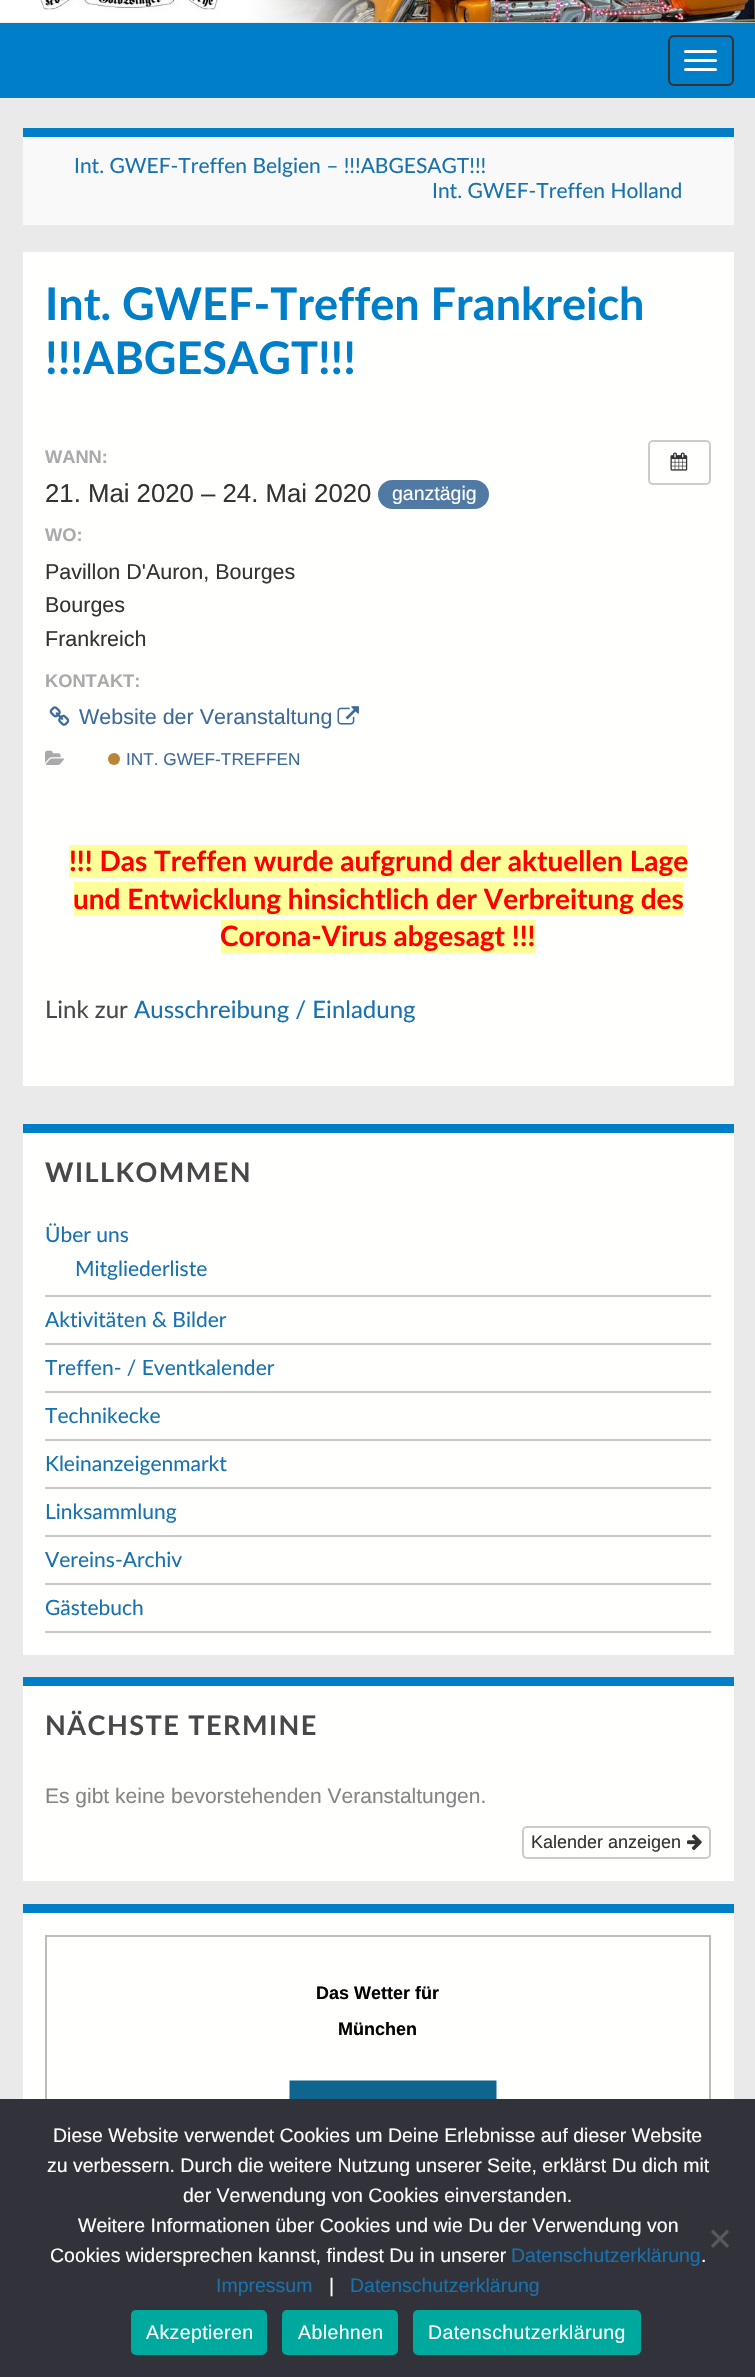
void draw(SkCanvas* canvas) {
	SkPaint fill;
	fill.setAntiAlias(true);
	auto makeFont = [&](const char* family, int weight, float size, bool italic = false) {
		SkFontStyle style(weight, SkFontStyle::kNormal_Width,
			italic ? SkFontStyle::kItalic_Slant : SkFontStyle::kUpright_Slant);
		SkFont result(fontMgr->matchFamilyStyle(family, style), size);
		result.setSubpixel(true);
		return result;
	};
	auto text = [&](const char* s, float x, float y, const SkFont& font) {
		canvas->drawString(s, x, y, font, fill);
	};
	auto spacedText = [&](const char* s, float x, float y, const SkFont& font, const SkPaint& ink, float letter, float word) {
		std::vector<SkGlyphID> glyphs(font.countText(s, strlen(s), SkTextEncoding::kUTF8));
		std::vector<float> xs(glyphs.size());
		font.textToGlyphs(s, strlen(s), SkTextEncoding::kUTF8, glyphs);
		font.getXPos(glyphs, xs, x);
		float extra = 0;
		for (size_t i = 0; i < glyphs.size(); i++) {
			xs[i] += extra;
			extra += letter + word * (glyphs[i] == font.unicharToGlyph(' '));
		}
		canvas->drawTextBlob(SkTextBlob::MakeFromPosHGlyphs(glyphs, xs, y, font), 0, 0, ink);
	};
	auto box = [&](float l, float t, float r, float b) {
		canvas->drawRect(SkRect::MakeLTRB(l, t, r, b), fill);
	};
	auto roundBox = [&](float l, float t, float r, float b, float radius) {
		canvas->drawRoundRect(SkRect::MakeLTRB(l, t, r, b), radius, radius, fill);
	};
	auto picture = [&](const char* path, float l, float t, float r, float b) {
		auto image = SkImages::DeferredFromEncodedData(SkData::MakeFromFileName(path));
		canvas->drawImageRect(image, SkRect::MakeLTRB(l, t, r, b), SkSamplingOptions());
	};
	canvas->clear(0xFFEAEAEA);
	picture("image0.png", 0, 0, 755, 23);
	fill.setColor(0xFF007EC7);
	box(0, 23, 755, 98);
	fill.setStyle(SkPaint::kStroke_Style);
	fill.setStrokeWidth(2);
	fill.setColor(0xFF333333);
	canvas->drawRoundRect(SkRect::MakeLTRB(669, 36, 733, 85), 5, 5, fill);
	fill.setStyle(SkPaint::kFill_Style);
	fill.setColor(0xFFFFFFFF);
	roundBox(684, 50, 717, 53, 1.5f);
	roundBox(684, 59, 717, 62, 1.5f);
	roundBox(684, 68, 717, 71, 1.5f);
	fill.setColor(0xFFF9F9F9);
	box(23, 137, 734, 225);
	fill.setColor(0xFF007EC7);
	box(23, 128, 734, 137);
	fill.setColor(0xFFFFFFFE);
	box(23, 252, 734, 1086);
	fill.setColor(0xFF507AA3);
	roundBox(378, 480, 489, 509, 14.5f);
	picture("image1.png", 49, 706, 70, 726);
	picture("image2.png", 337, 706, 359, 725);
	picture("image3.png", 45, 750, 64, 765);
	fill.setColor(0xFFBB8533);
	canvas->drawCircle(114, 759, 6, fill);
	fill.setStyle(SkPaint::kStroke_Style);
	fill.setColor(0xFFCCCCCC);
	canvas->drawRoundRect(SkRect::MakeLTRB(649, 441, 710, 484), 4, 4, fill);
	picture("image4.png", 670, 452, 688, 471);
	fill.setStyle(SkPaint::kFill_Style);
	fill.setColor(0xFFFFFF99);
	box(69, 845, 687, 878);
	box(74, 882, 683, 915);
	box(221, 920, 536, 953);
	fill.setColor(0xFFFFFFFE);
	box(23, 1133, 734, 1655);
	fill.setColor(0xFF007EC7);
	box(23, 1124, 734, 1133);
	fill.setColor(0xFFC9C9C9);
	box(45, 1295, 711, 1297);
	box(45, 1343, 711, 1345);
	box(45, 1391, 711, 1393);
	box(45, 1439, 711, 1441);
	box(45, 1487, 711, 1489);
	box(45, 1535, 711, 1537);
	box(45, 1583, 711, 1585);
	box(45, 1631, 711, 1633);
	fill.setColor(0xFFFFFFFE);
	box(23, 1686, 734, 1881);
	fill.setColor(0xFF007EC7);
	box(23, 1677, 734, 1686);
	fill.setStyle(SkPaint::kStroke_Style);
	fill.setColor(0xFFCCCCCC);
	canvas->drawRoundRect(SkRect::MakeLTRB(523, 1827, 710, 1858), 4, 4, fill);
	picture("image5.png", 687, 1834, 702, 1850);
	fill.setStyle(SkPaint::kFill_Style);
	fill.setColor(0xFFFFFFFE);
	box(23, 1913, 734, 2099);
	fill.setColor(0xFF007EC7);
	box(23, 1904, 734, 1913);
	fill.setStyle(SkPaint::kStroke_Style);
	fill.setColor(0xFFBCBCBC);
	canvas->drawRect(SkRect::MakeLTRB(46, 1936, 710, 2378), fill);
	picture("image6.png", 268, 2080, 497, 2099);
	fill.setStyle(SkPaint::kFill_Style);
	fill.setColor(0xFF32323A);
	box(0, 2099, 755, 2377);
	fill.setColor(0xFF59595D);
	canvas->drawPath(SkPathBuilder().moveTo(727, 2229.5f).lineTo(729, 2232).lineTo(713, 2248).lineTo(711, 2245.5f).close().detach(), fill);
	canvas->drawPath(SkPathBuilder().moveTo(711, 2232).lineTo(713, 2229.5f).lineTo(729, 2245.5f).lineTo(727, 2248).close().detach(), fill);
	fill.setColor(0xFF00A99D);
	roundBox(131, 2310, 267, 2355, 5);
	roundBox(282, 2310, 398, 2355, 5);
	roundBox(413, 2310, 641, 2355, 5);
	auto font1 = makeFont("Lato", 400, 21);
	fill.setColor(0xFF1772AF);
	text("Int. GWEF-Treffen Belgien – !!!ABGESAGT!!!", 74, 173, font1);
	text("Int. GWEF-Treffen Holland", 432, 198, font1);
	auto font2 = makeFont("Lato", 700, 45);
	fill.setColor(0xFF007EC7);
	text("Int. GWEF-Treffen Frankreich", 45, 320, font2);
	text("!!!ABGESAGT!!!", 45, 374, font2);
	auto font3 = makeFont("Liberation Sans", 700, 18.25f);
	fill.setColor(0xFFAAAAAA);
	text("WANN:", 45, 463, font3);
	auto font4 = makeFont("Liberation Sans", 400, 25.75f);
	fill.setColor(0xFF333333);
	text("21. Mai 2020 – 24. Mai 2020", 45, 502, font4);
	auto font5 = makeFont("Liberation Sans", 400, 19.5f);
	fill.setColor(0xFFFFFFFF);
	text("ganztägig", 392, 500, font5);
	fill.setColor(0xFFAAAAAA);
	text("WO:", 45, 541, font3);
	auto font6 = makeFont("Liberation Sans", 400, 21.5f);
	fill.setColor(0xFF333333);
	text("Pavillon D'Auron, Bourges", 45, 579, font6);
	text("Bourges", 45, 612, font6);
	text("Frankreich", 45, 646, font6);
	fill.setColor(0xFFAAAAAA);
	text("KONTAKT:", 45, 687, font3);
	fill.setColor(0xFF3D6B99);
	text("Website der Veranstaltung", 79, 724, font6);
	auto font7 = makeFont("Liberation Sans", 400, 17.25f);
	text("INT. GWEF-TREFFEN", 126, 765, font7);
	auto font8 = makeFont("Lato", 700, 28);
	fill.setColor(0xFFFF0000);
	text("!!! Das Treffen wurde aufgrund der aktuellen Lage", 69, 871, font8);
	text("und Entwicklung hinsichtlich der Verbreitung des", 73, 909, font8);
	text("Corona-Virus abgesagt !!!", 220, 946, font8);
	auto font9 = makeFont("Lato", 400, 24);
	fill.setColor(0xFF4A474B);
	text("Link zur", 45, 1018, font9);
	fill.setColor(0xFF1772AF);
	text("Ausschreibung / Einladung", 134, 1018, font9);
	auto font10 = makeFont("Lato", 700, 27);
	fill.setColor(0xFF4A474B);
	spacedText("WILLKOMMEN", 45, 1182, font10, fill, 1.5f, 0);
	fill.setColor(0xFF1772AF);
	text("Über uns", 45, 1242, font1);
	text("Mitgliederliste", 75, 1276, font1);
	text("Aktivitäten & Bilder", 45, 1327, font1);
	text("Treffen- / Eventkalender", 45, 1375, font1);
	text("Technikecke", 45, 1423, font1);
	text("Kleinanzeigenmarkt", 45, 1471, font1);
	text("Linksammlung", 45, 1519, font1);
	text("Vereins-Archiv", 45, 1567, font1);
	text("Gästebuch", 45, 1615, font1);
	fill.setColor(0xFF4A474B);
	spacedText("NÄCHSTE TERMINE", 45, 1735, font10, fill, 1.5f, 0);
	auto font11 = makeFont("Liberation Sans", 400, 21);
	fill.setColor(0xFF858585);
	text("Es gibt keine bevorstehenden Veranstaltungen.", 45, 1803, font11);
	auto font12 = makeFont("Liberation Sans", 400, 18);
	fill.setColor(0xFF333333);
	text("Kalender anzeigen", 531, 1848, font12);
	auto font13 = makeFont("Liberation Sans", 700, 18);
	fill.setColor(0xFF000000);
	text("Das Wetter für", 316, 1999, font13);
	text("München", 338, 2035, font13);
	fill.setColor(0xFFFFFFFF);
	text("Diese Website verwendet Cookies um Deine Erlebnisse auf dieser Website", 53, 2142, font5);
	text("zu verbessern. Durch die weitere Nutzung unserer Seite, erklärst Du dich mit", 47, 2172, font5);
	text("der Verwendung von Cookies einverstanden.", 183, 2202, font5);
	text("Weitere Informationen über Cookies und wie Du der Verwendung von", 78, 2232, font5);
	text("Cookies widersprechen kannst, findest Du in unserer", 50, 2262, font5);
	fill.setColor(0xFF1772AF);
	text("Datenschutzerklärung", 511, 2262, font5);
	fill.setColor(0xFFFFFFFF);
	text(".", 701, 2262, font5);
	fill.setColor(0xFF1772AF);
	text("Impressum", 216, 2292, font5);
	fill.setColor(0xFFFFFFFF);
	text("|", 329, 2292, font5);
	fill.setColor(0xFF1772AF);
	text("Datenschutzerklärung", 350, 2292, font5);
	fill.setColor(0xFFFFFFFF);
	spacedText("Akzeptieren", 146, 2339, font5, fill, 0.4f, 0);
	spacedText("Ablehnen", 298, 2339, font5, fill, 0.4f, 0);
	spacedText("Datenschutzerklärung", 428, 2339, font5, fill, 0.4f, 0);
}
